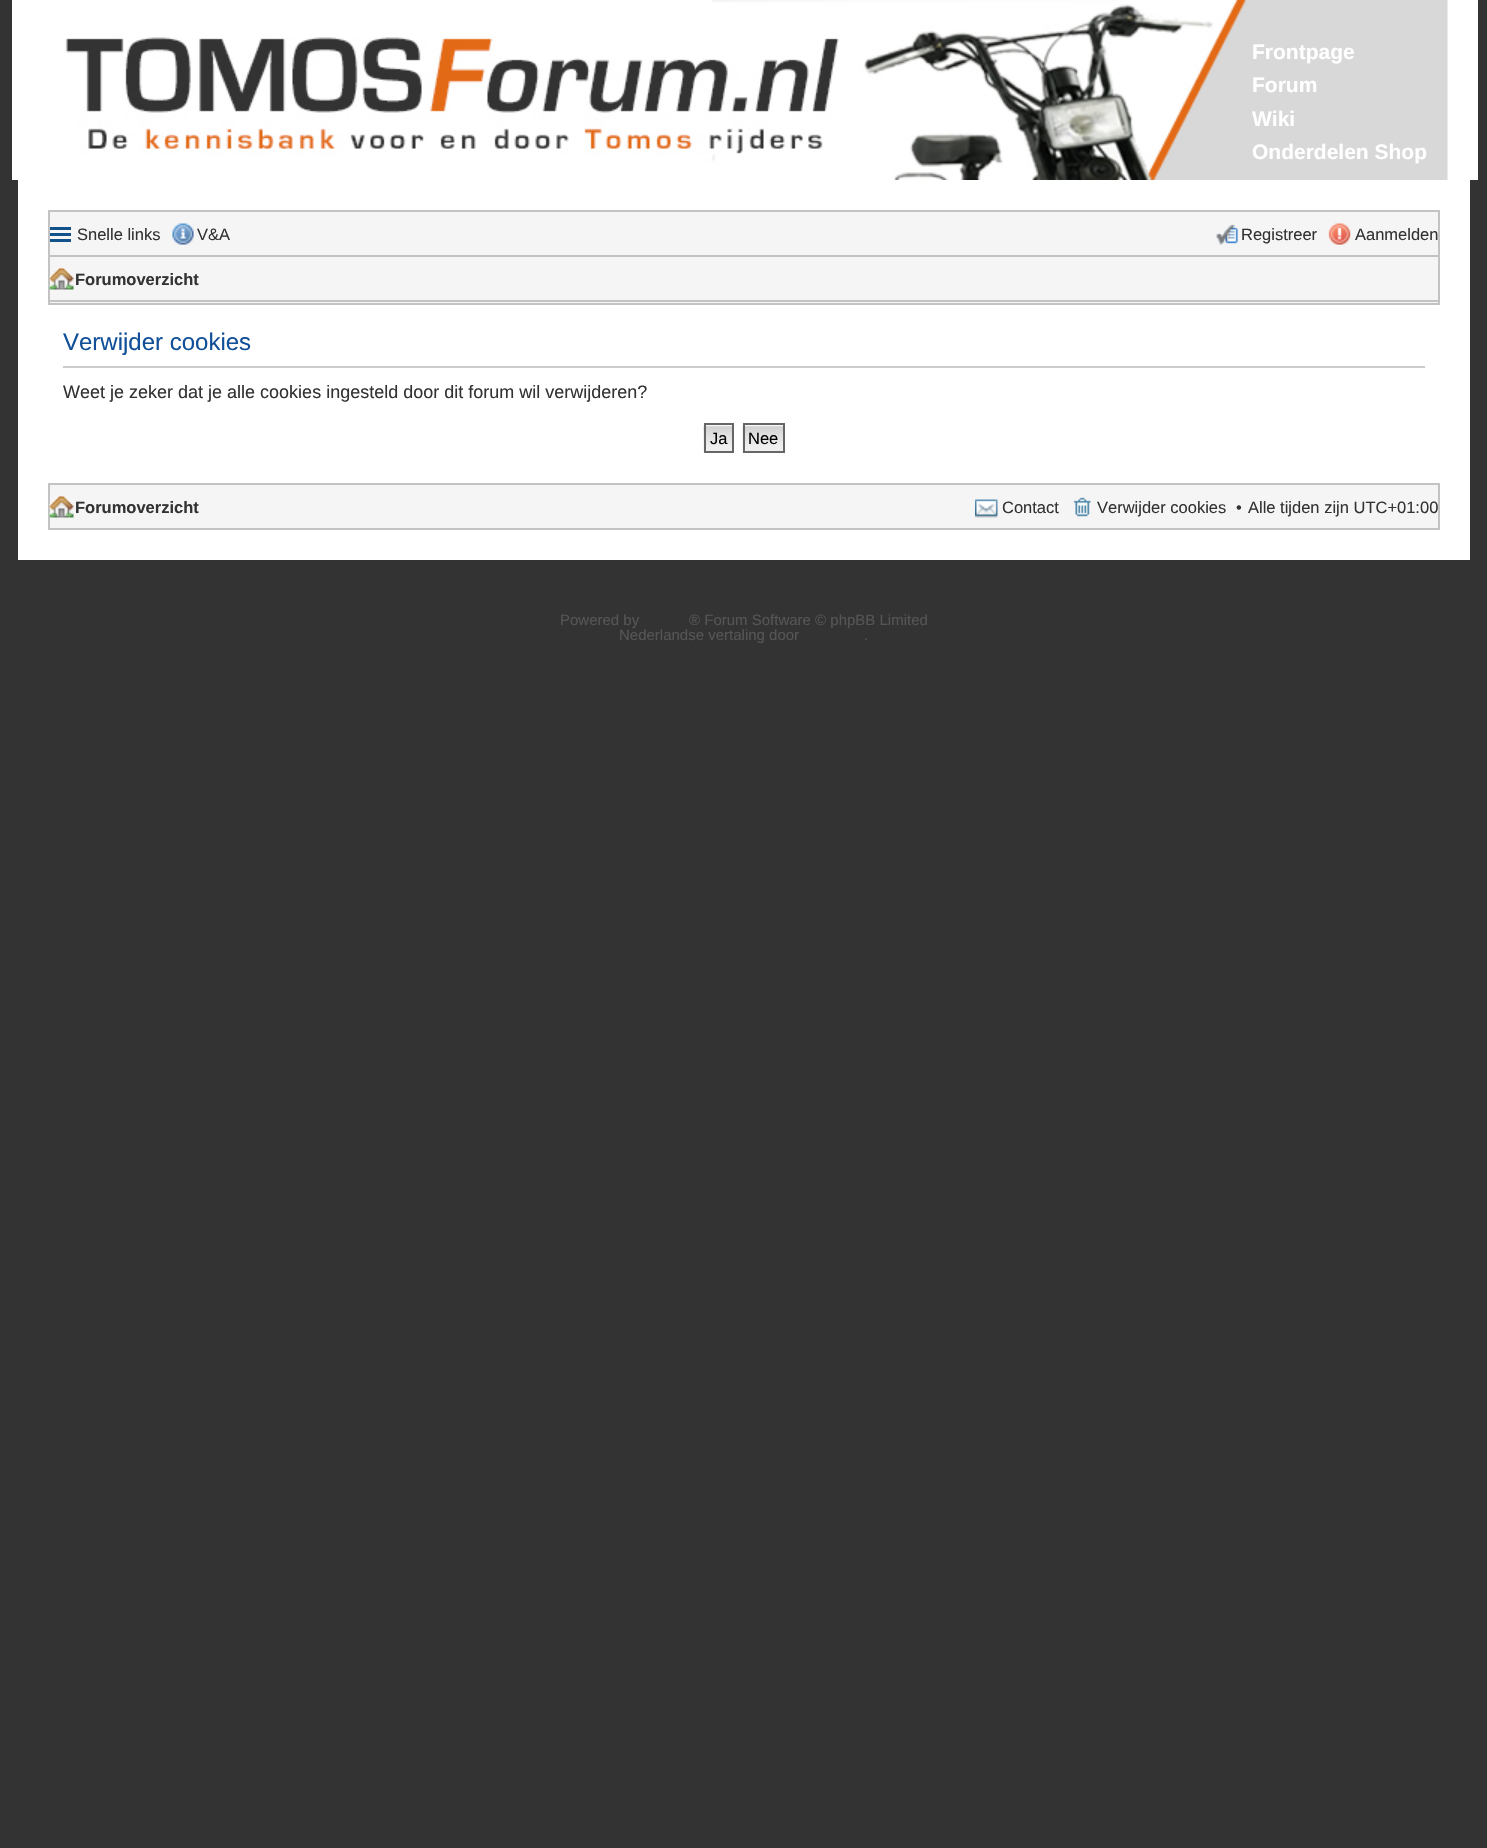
void draw(SkCanvas* canvas) {
	SkPaint fill;
	fill.setAntiAlias(true);
	auto makeFont = [&](const char* family, int weight, float size, bool italic = false) {
		SkFontStyle style(weight, SkFontStyle::kNormal_Width,
			italic ? SkFontStyle::kItalic_Slant : SkFontStyle::kUpright_Slant);
		SkFont result(fontMgr->matchFamilyStyle(family, style), size);
		result.setSubpixel(true);
		return result;
	};
	auto text = [&](const char* s, float x, float y, const SkFont& font) {
		canvas->drawString(s, x, y, font, fill);
	};
	auto box = [&](float l, float t, float r, float b) {
		canvas->drawRect(SkRect::MakeLTRB(l, t, r, b), fill);
	};
	auto picture = [&](const char* path, float l, float t, float r, float b) {
		auto image = SkImages::DeferredFromEncodedData(SkData::MakeFromFileName(path));
		canvas->drawImageRect(image, SkRect::MakeLTRB(l, t, r, b), SkSamplingOptions());
	};
	canvas->clear(0xFF333333);
	fill.setColor(0xFFFFFFFF);
	box(12, 0, 1478, 180);
	picture("image0.png", 65, 0, 1448, 180);
	box(18, 180, 1470, 560);
	fill.setColor(0xFFF5F5F5);
	canvas->drawRect(SkRect::MakeLTRB(49, 211, 1439, 304), fill);
	fill.setStyle(SkPaint::kStroke_Style);
	fill.setStrokeWidth(2);
	fill.setColor(0xFFC3C3C3);
	canvas->drawRect(SkRect::MakeLTRB(49, 211, 1439, 304), fill);
	fill.setStyle(SkPaint::kFill_Style);
	fill.setColor(0xFF105289);
	box(50, 227, 71, 230);
	box(50, 233, 71, 236);
	box(50, 239, 71, 242);
	picture("image1.png", 172, 223, 194, 245);
	picture("image2.png", 1216, 224, 1238, 245);
	picture("image3.png", 1328, 223, 1351, 245);
	fill.setColor(0xFFC3C3C3);
	box(50, 255, 1439, 257);
	box(50, 300, 1439, 302);
	picture("image4.png", 49, 267, 74, 290);
	fill.setColor(0xFFCCCCCC);
	box(63, 366, 1425, 368);
	picture("image5.png", 703, 425, 732, 453);
	fill.setStyle(SkPaint::kStroke_Style);
	fill.setColor(0xFF666666);
	canvas->drawRect(SkRect::MakeLTRB(705, 424, 733, 452), fill);
	picture("image6.png", 742, 425, 783, 453);
	canvas->drawRect(SkRect::MakeLTRB(744, 424, 784, 452), fill);
	fill.setStyle(SkPaint::kFill_Style);
	fill.setColor(0xFFF5F5F5);
	canvas->drawRect(SkRect::MakeLTRB(49, 484, 1439, 529), fill);
	fill.setStyle(SkPaint::kStroke_Style);
	fill.setColor(0xFFC3C3C3);
	canvas->drawRect(SkRect::MakeLTRB(49, 484, 1439, 529), fill);
	picture("image4.png", 49, 495, 74, 518);
	picture("image7.png", 975, 499, 998, 518);
	picture("image8.png", 1073, 497, 1091, 517);
	auto font1 = makeFont("Liberation Sans", 700, 21);
	fill.setStyle(SkPaint::kFill_Style);
	fill.setColor(0xFFFFFFFF);
	text("Frontpage", 1252, 59, font1);
	text("Forum", 1252, 92, font1);
	text("Wiki", 1252, 126, font1);
	text("Onderdelen Shop", 1252, 159, font1);
	auto font2 = makeFont("Liberation Sans", 400, 16.5f);
	fill.setColor(0xFF333333);
	text("Snelle links", 77, 240, font2);
	text("V&A", 197, 240, font2);
	text("Registreer", 1241, 240, font2);
	text("Aanmelden", 1355, 240, font2);
	auto font3 = makeFont("Liberation Sans", 700, 16.5f);
	text("Forumoverzicht", 75, 285, font3);
	auto font4 = makeFont("Liberation Sans", 400, 24);
	fill.setColor(0xFF115098);
	text("Verwijder cookies", 63, 350, font4);
	auto font5 = makeFont("Liberation Sans", 400, 18);
	fill.setColor(0xFF333333);
	text("Weet je zeker dat je alle cookies ingesteld door dit forum wil verwijderen?", 63, 398, font5);
	fill.setColor(0xFF000000);
	text("Ja", 710, 444, font2);
	text("Nee", 748, 444, font2);
	fill.setColor(0xFF333333);
	text("Forumoverzicht", 75, 513, font3);
	text("Contact", 1002, 513, font2);
	text("Verwijder cookies", 1097, 513, font2);
	text("•", 1236, 513, font2);
	text("Alle tijden zijn UTC+01:00", 1248, 513, font2);
	auto font6 = makeFont("Liberation Sans", 400, 15);
	fill.setColor(0xFF555555);
	text("Powered by", 560, 625, font6);
	text("® Forum Software © phpBB Limited", 689, 625, font6);
	text("Nederlandse vertaling door", 619, 640, font6);
	text(".", 864, 640, font6);
}
